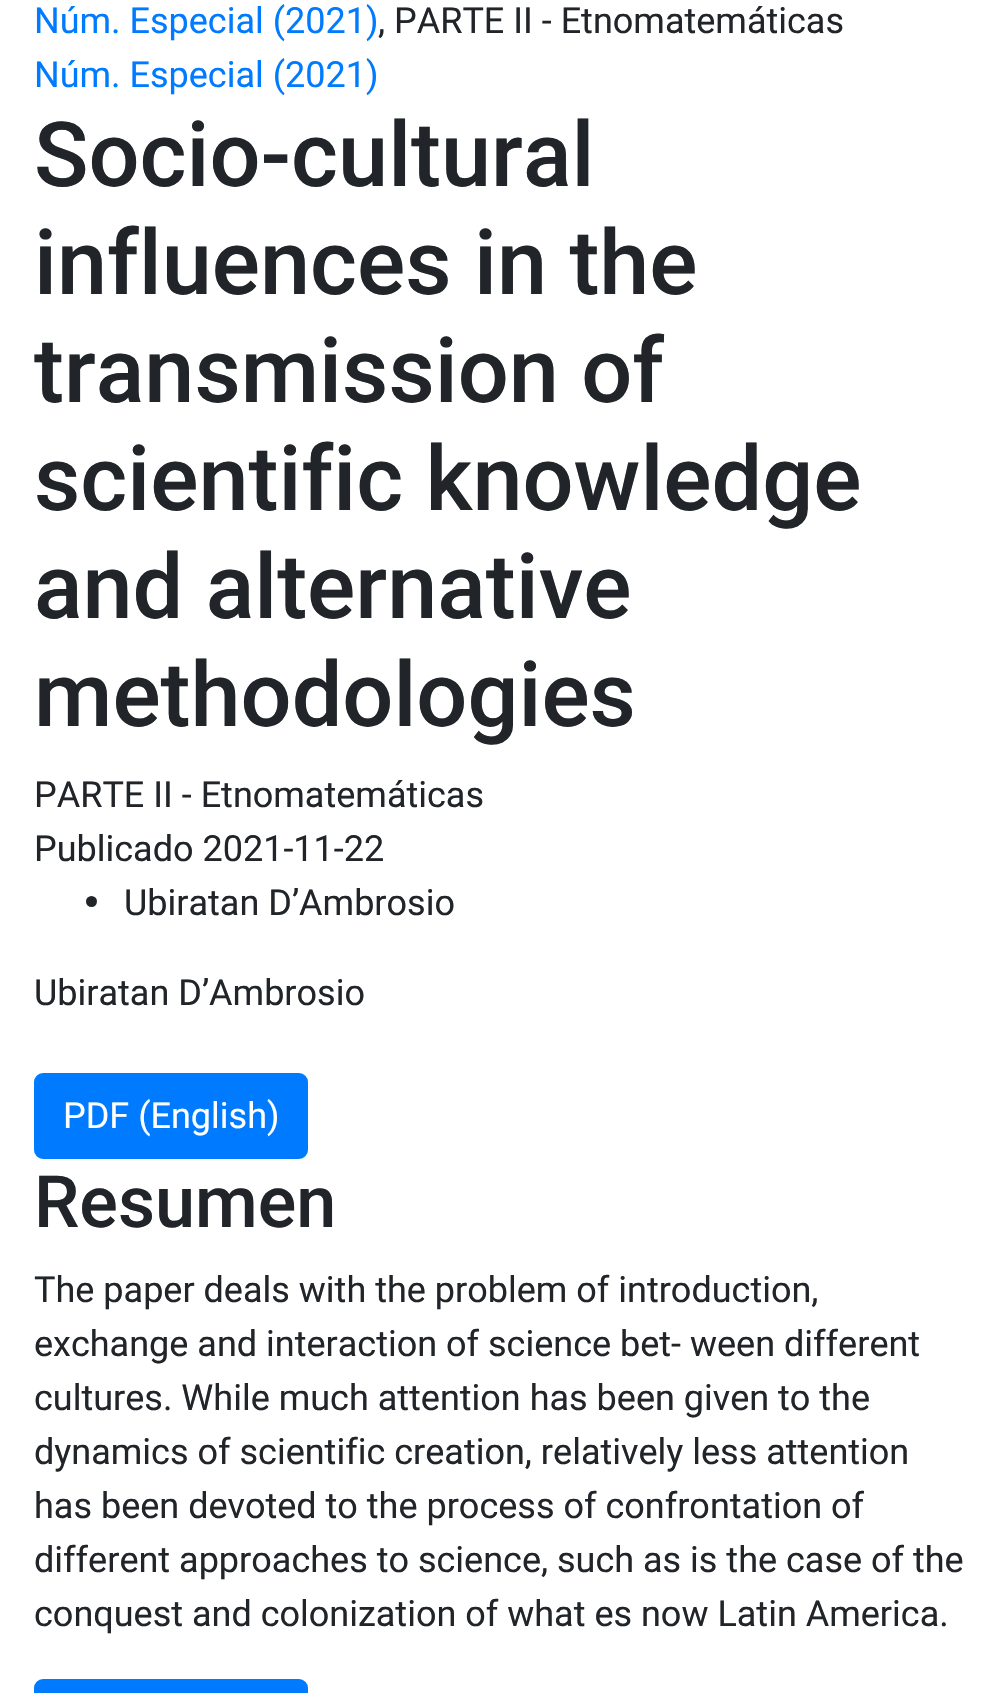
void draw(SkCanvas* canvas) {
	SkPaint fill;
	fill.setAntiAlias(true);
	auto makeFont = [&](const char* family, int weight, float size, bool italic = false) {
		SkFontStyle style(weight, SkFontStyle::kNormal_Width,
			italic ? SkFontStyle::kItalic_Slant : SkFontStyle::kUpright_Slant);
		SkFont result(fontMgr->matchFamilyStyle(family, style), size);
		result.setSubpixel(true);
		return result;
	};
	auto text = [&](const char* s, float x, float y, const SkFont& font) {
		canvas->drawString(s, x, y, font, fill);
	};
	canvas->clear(0xFFFFFFFF);
	fill.setColor(0xFF212529);
	canvas->drawCircle(91.5f, 901.5f, 5.5f, fill);
	fill.setColor(0xFF007BFF);
	canvas->drawRoundRect(SkRect::MakeLTRB(35, 1074, 307, 1158), 8, 8, fill);
	fill.setStyle(SkPaint::kStroke_Style);
	fill.setStrokeWidth(2);
	canvas->drawRoundRect(SkRect::MakeLTRB(35, 1074, 307, 1158), 8, 8, fill);
	fill.setStyle(SkPaint::kFill_Style);
	canvas->drawRoundRect(SkRect::MakeLTRB(35, 1680, 307, 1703), 8, 8, fill);
	fill.setStyle(SkPaint::kStroke_Style);
	canvas->drawRoundRect(SkRect::MakeLTRB(35, 1680, 307, 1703), 8, 8, fill);
	auto font1 = makeFont("Roboto", 400, 36);
	fill.setStyle(SkPaint::kFill_Style);
	text("Núm. Especial (2021)", 34, 33, font1);
	fill.setColor(0xFF212529);
	text(", PARTE II - Etnomatemáticas", 378, 33, font1);
	fill.setColor(0xFF007BFF);
	text("Núm. Especial (2021)", 34, 87, font1);
	auto font2 = makeFont("Roboto", 500, 90);
	fill.setColor(0xFF212529);
	text("Socio-cultural", 34, 186, font2);
	text("influences in the", 34, 294, font2);
	text("transmission of", 34, 402, font2);
	text("scientific knowledge", 34, 510, font2);
	text("and alternative", 34, 618, font2);
	text("methodologies", 34, 726, font2);
	text("PARTE II - Etnomatemáticas", 34, 807, font1);
	text("Publicado 2021-11-22", 34, 861, font1);
	text("Ubiratan D’Ambrosio", 124, 915, font1);
	text("Ubiratan D’Ambrosio", 34, 1005, font1);
	fill.setColor(0xFFFFFFFF);
	text("PDF (English)", 63, 1128, font1);
	auto font3 = makeFont("Roboto", 500, 72);
	fill.setColor(0xFF212529);
	text("Resumen", 34, 1227, font3);
	text("The paper deals with the problem of introduction,", 34, 1302, font1);
	text("exchange and interaction of science bet- ween different", 34, 1356, font1);
	text("cultures. While much attention has been given to the", 34, 1410, font1);
	text("dynamics of scientific creation, relatively less attention", 34, 1464, font1);
	text("has been devoted to the process of confrontation of", 34, 1518, font1);
	text("different approaches to science, such as is the case of the", 34, 1572, font1);
	text("conquest and colonization of what es now Latin America.", 34, 1626, font1);
}
